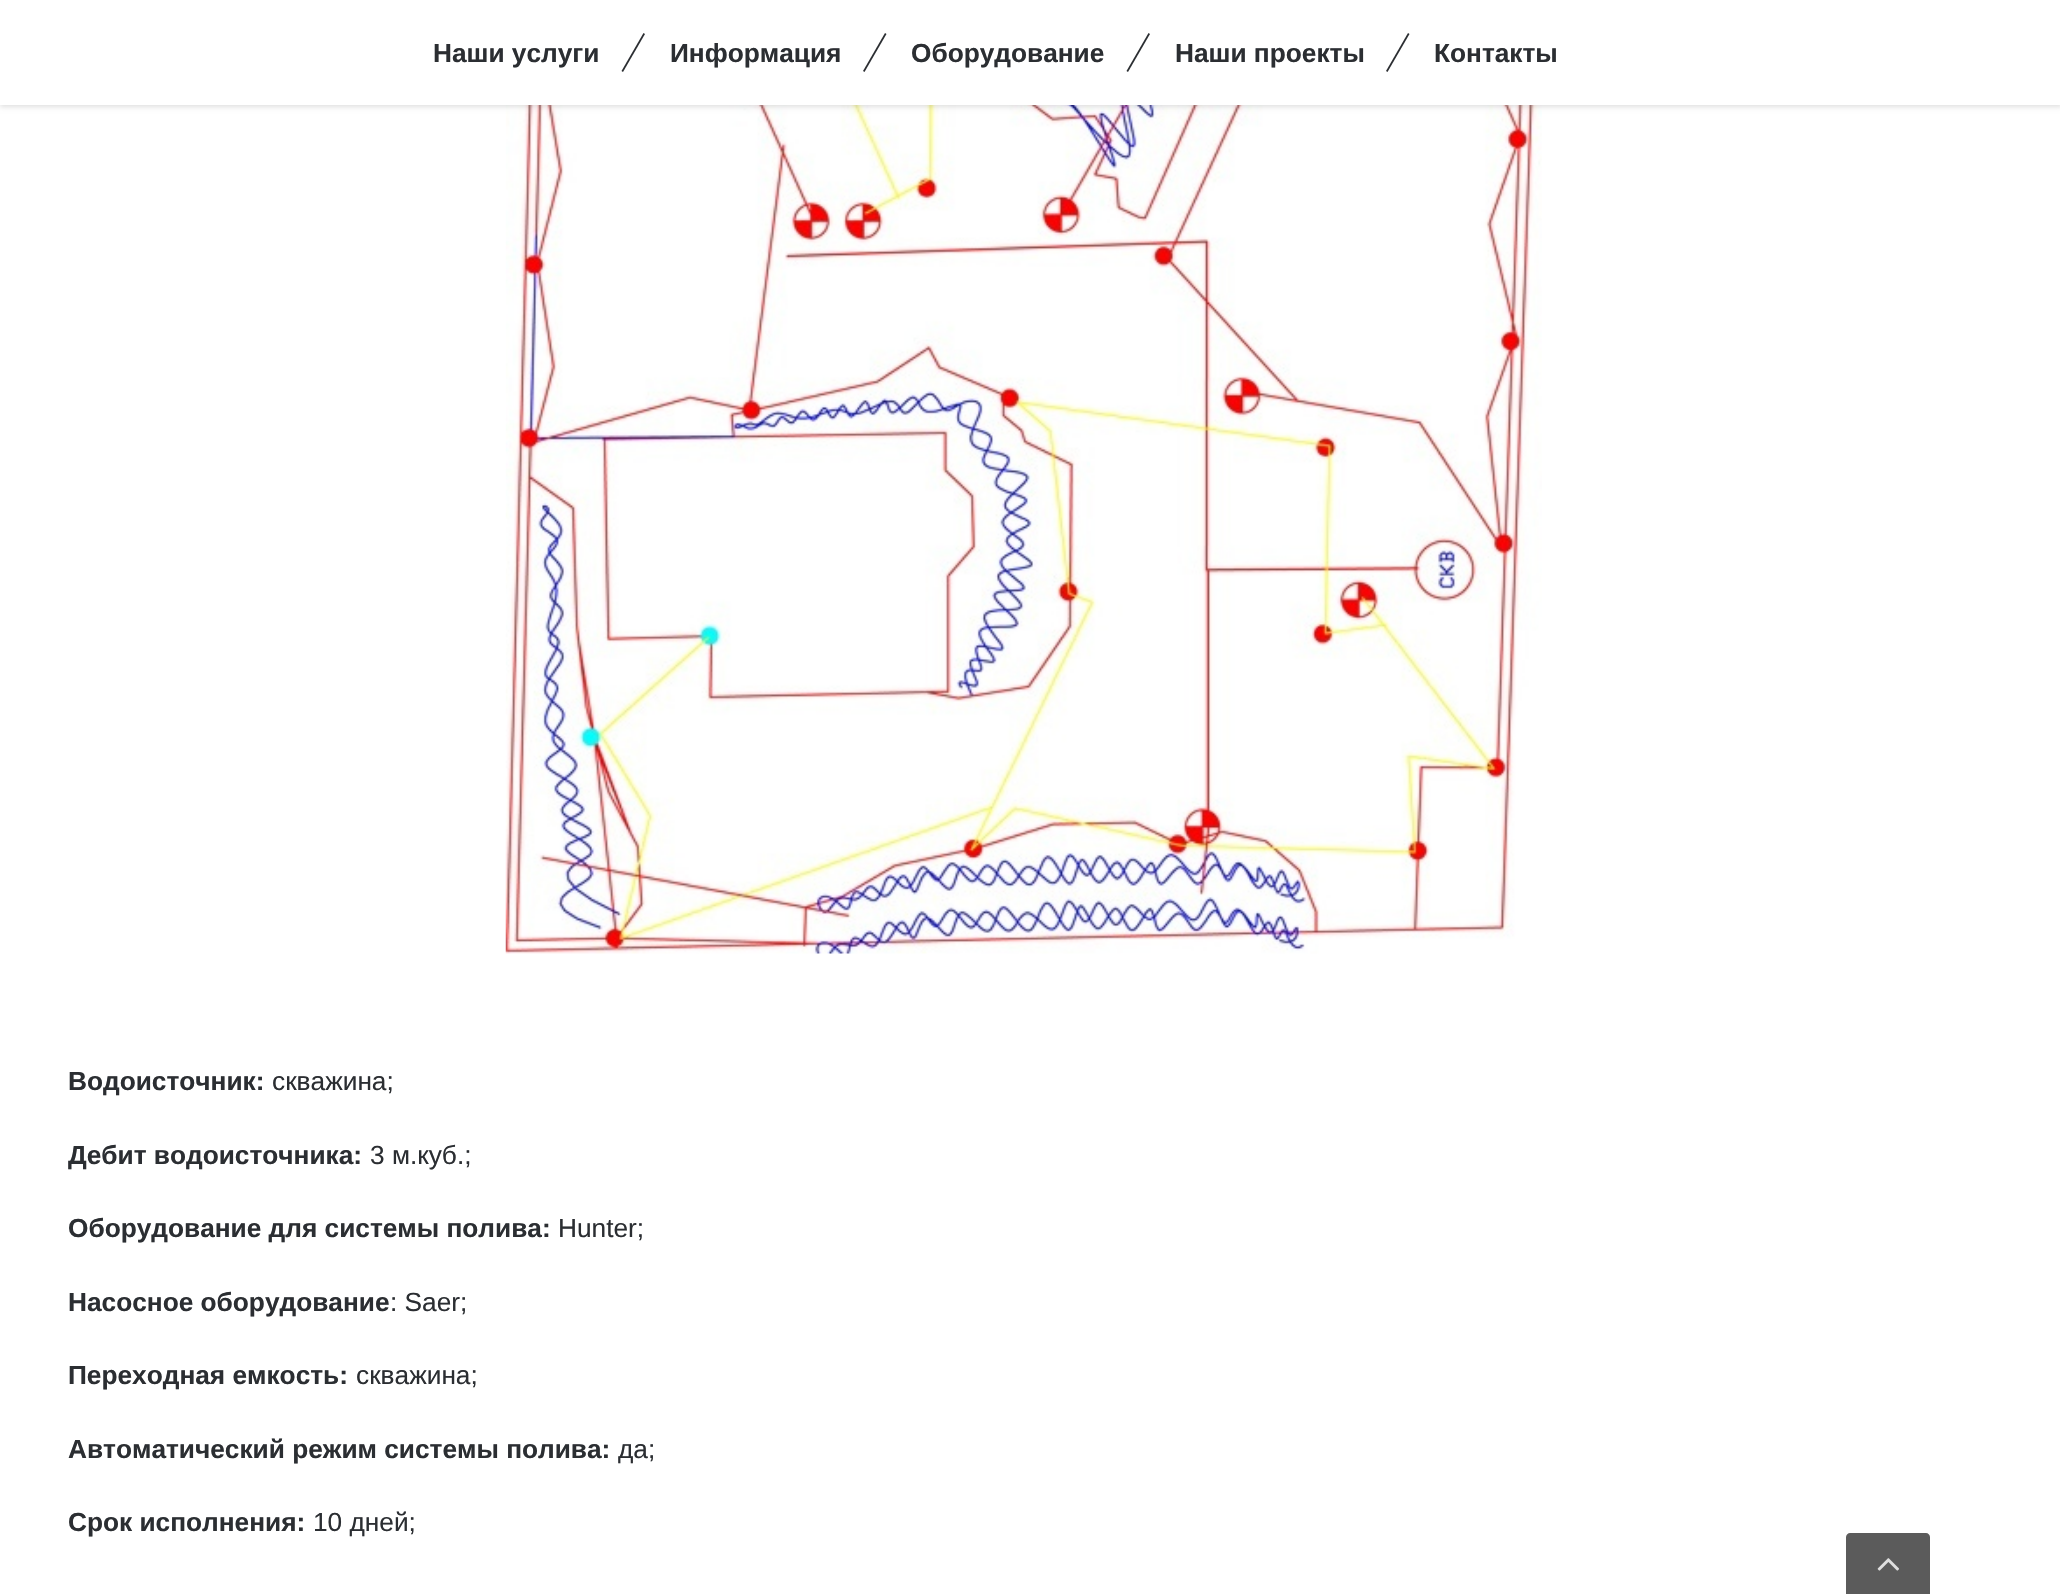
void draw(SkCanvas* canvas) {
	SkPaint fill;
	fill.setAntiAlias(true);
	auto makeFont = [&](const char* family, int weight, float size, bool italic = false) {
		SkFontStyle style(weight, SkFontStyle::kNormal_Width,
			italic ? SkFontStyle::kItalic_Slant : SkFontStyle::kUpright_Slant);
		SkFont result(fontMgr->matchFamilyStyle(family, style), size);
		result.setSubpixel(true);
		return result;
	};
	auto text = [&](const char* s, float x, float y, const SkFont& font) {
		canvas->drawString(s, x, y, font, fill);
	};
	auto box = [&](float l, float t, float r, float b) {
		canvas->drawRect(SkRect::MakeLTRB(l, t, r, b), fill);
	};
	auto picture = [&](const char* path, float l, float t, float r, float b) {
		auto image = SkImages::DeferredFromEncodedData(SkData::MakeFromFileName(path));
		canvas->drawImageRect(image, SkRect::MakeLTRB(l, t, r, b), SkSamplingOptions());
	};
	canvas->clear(0xFFFFFFFF);
	picture("image0.png", 505, 105, 1542, 954);
	fill.setColor(0x1F000000);
	fill.setMaskFilter(SkMaskFilter::MakeBlur(kNormal_SkBlurStyle, 2.5f));
	canvas->drawRect(SkRect::MakeLTRB(0, 2, 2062, 107), fill);
	fill.setMaskFilter(nullptr);
	fill.setColor(0xFFFFFFFF);
	box(0, 0, 2060, 105);
	fill.setColor(0xFF2B2E32);
	canvas->drawPath(SkPathBuilder().moveTo(643.5f, 33).lineTo(645, 34).lineTo(623, 72).lineTo(621.5f, 71).close().detach(), fill);
	canvas->drawPath(SkPathBuilder().moveTo(885, 33).lineTo(886.5f, 34).lineTo(864.5f, 72).lineTo(863, 71).close().detach(), fill);
	canvas->drawPath(SkPathBuilder().moveTo(1148.5f, 33).lineTo(1150, 34).lineTo(1128, 72).lineTo(1126.5f, 71).close().detach(), fill);
	canvas->drawPath(SkPathBuilder().moveTo(1408, 33).lineTo(1409.5f, 34).lineTo(1387.5f, 72).lineTo(1386, 71).close().detach(), fill);
	fill.setColor(0xFF5B5B5B);
	canvas->drawPath(SkPathBuilder().moveTo(1850, 1533).lineTo(1926, 1533).cubicTo(1928, 1533, 1930, 1535, 1930, 1537).lineTo(1930, 1594).lineTo(1846, 1594).lineTo(1846, 1537).cubicTo(1846, 1535, 1848, 1533, 1850, 1533).close().detach(), fill);
	picture("image1.png", 1877, 1558, 1899, 1571);
	auto font1 = makeFont("Liberation Sans", 700, 26.25f);
	fill.setColor(0xFF2B2E32);
	text("Наши услуги", 433, 62, font1);
	text("Информация", 670, 62, font1);
	text("Оборудование", 911, 62, font1);
	text("Наши проекты", 1175, 62, font1);
	text("Контакты", 1434, 62, font1);
	text("Водоисточник:", 68, 1090, font1);
	auto font2 = makeFont("Liberation Sans", 400, 26.25f);
	text("скважина;", 272, 1090, font2);
	text("Дебит водоисточника:", 68, 1164, font1);
	text("3 м.куб.;", 370, 1164, font2);
	text("Оборудование для системы полива:", 68, 1237, font1);
	text("Hunter;", 558, 1237, font2);
	text("Насосное оборудование", 68, 1311, font1);
	text(": Saer;", 390, 1311, font2);
	text("Переходная емкость:", 68, 1384, font1);
	text("скважина;", 356, 1384, font2);
	text("Автоматический режим системы полива:", 68, 1458, font1);
	text("да;", 618, 1458, font2);
	text("Срок исполнения:", 68, 1531, font1);
	text("10 дней;", 313, 1531, font2);
}
